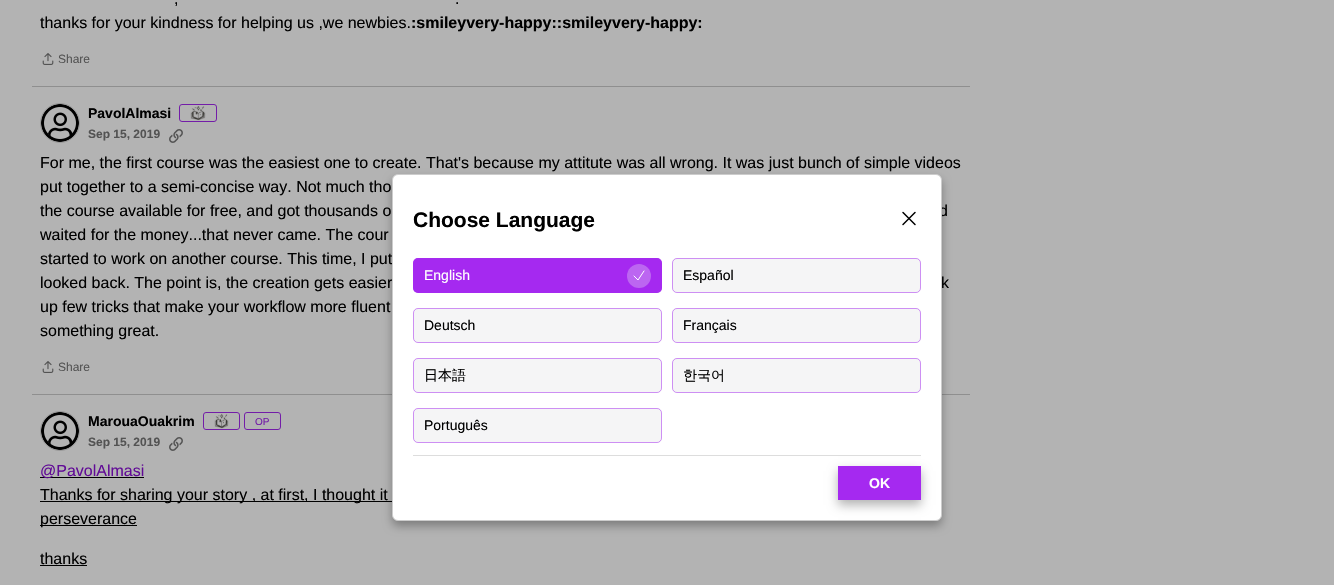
void draw(SkCanvas* canvas) {
	SkPaint fill;
	fill.setAntiAlias(true);
	auto makeFont = [&](const char* family, int weight, float size, bool italic = false) {
		SkFontStyle style(weight, SkFontStyle::kNormal_Width,
			italic ? SkFontStyle::kItalic_Slant : SkFontStyle::kUpright_Slant);
		SkFont result(fontMgr->matchFamilyStyle(family, style), size);
		result.setSubpixel(true);
		return result;
	};
	auto text = [&](const char* s, float x, float y, const SkFont& font) {
		canvas->drawString(s, x, y, font, fill);
	};
	auto box = [&](float l, float t, float r, float b) {
		canvas->drawRect(SkRect::MakeLTRB(l, t, r, b), fill);
	};
	auto roundBox = [&](float l, float t, float r, float b, float radius) {
		canvas->drawRoundRect(SkRect::MakeLTRB(l, t, r, b), radius, radius, fill);
	};
	auto picture = [&](const char* path, float l, float t, float r, float b) {
		auto image = SkImages::DeferredFromEncodedData(SkData::MakeFromFileName(path));
		canvas->drawImageRect(image, SkRect::MakeLTRB(l, t, r, b), SkSamplingOptions());
	};
	canvas->clear(0xFFB3B3B3);
	picture("image0.png", 42, 53, 54, 65);
	fill.setColor(0xFF8F8F8F);
	box(32, 86, 970, 87);
	fill.setStyle(SkPaint::kStroke_Style);
	fill.setStrokeWidth(1);
	fill.setColor(0xFF989898);
	canvas->drawCircle(60, 123, 19.5f, fill);
	picture("image1.png", 41, 104, 79, 142);
	fill.setColor(0xFF731DA8);
	canvas->drawRoundRect(SkRect::MakeLTRB(179.5f, 104.5f, 216.5f, 121.5f), 2.5f, 2.5f, fill);
	picture("image2.png", 190, 106, 206, 121);
	picture("image3.png", 169, 129, 183, 143);
	picture("image0.png", 42, 361, 54, 373);
	fill.setStyle(SkPaint::kFill_Style);
	fill.setColor(0xFF8F8F8F);
	box(32, 394, 970, 395);
	fill.setStyle(SkPaint::kStroke_Style);
	fill.setColor(0xFF989898);
	canvas->drawCircle(60, 431, 19.5f, fill);
	picture("image1.png", 41, 412, 79, 450);
	fill.setColor(0xFF731DA8);
	canvas->drawRoundRect(SkRect::MakeLTRB(203.5f, 412.5f, 239.5f, 429.5f), 2.5f, 2.5f, fill);
	picture("image4.png", 214, 413, 229, 429);
	canvas->drawRoundRect(SkRect::MakeLTRB(244.5f, 412.5f, 280.5f, 429.5f), 2.5f, 2.5f, fill);
	picture("image3.png", 169, 437, 183, 451);
	fill.setStyle(SkPaint::kFill_Style);
	fill.setColor(0xFF000000);
	box(40, 477, 144, 478);
	box(40, 501, 392, 502);
	box(40, 525, 137, 526);
	box(40, 565, 87, 566);
	fill.setColor(0x4D000000);
	fill.setMaskFilter(SkMaskFilter::MakeBlur(kNormal_SkBlurStyle, 5));
	canvas->drawRoundRect(SkRect::MakeLTRB(392, 179, 942, 526), 6, 6, fill);
	fill.setMaskFilter(nullptr);
	auto font1 = makeFont("Liberation Sans", 400, 16);
	fill.setColor(0xFF000000);
	text(",", 174, 4, font1);
	text(".", 455, 4, font1);
	text("thanks for your kindness for helping us ,we newbies.", 40, 28, font1);
	auto font2 = makeFont("Liberation Sans", 700, 16);
	text(":smileyvery-happy::smileyvery-happy:", 411, 28, font2);
	auto font3 = makeFont("Liberation Sans", 400, 12);
	fill.setColor(0xFF535353);
	text("Share", 58, 63, font3);
	auto font4 = makeFont("Liberation Sans", 700, 14);
	fill.setColor(0xFF000000);
	text("PavolAlmasi", 88, 118, font4);
	auto font5 = makeFont("Liberation Sans", 700, 12);
	fill.setColor(0xFF535353);
	text("Sep 15, 2019", 88, 138, font5);
	fill.setColor(0xFF000000);
	text("For me, the first course was the easiest one to create. That's because my attitute was all wrong. It was just bunch of simple videos", 40, 168, font1);
	text("put together to a semi-concise way. Not much tho", 40, 192, font1);
	text("the course available for free, and got thousands o", 40, 216, font1);
	text("d", 939, 216, font1);
	text("waited for the money...that never came. The cour", 40, 240, font1);
	text("started to work on another course. This time, I put", 40, 264, font1);
	text("looked back. The point is, the creation gets easier", 40, 288, font1);
	text("k", 941, 288, font1);
	text("up few tricks that make your workflow more fluent", 40, 312, font1);
	text("something great.", 40, 336, font1);
	fill.setColor(0xFF535353);
	text("Share", 58, 371, font3);
	fill.setColor(0xFF000000);
	text("MarouaOuakrim", 88, 426, font4);
	auto font6 = makeFont("Liberation Sans", 400, 10);
	fill.setColor(0xFF731DA8);
	text("OP", 255, 425, font6);
	fill.setColor(0xFF535353);
	text("Sep 15, 2019", 88, 446, font5);
	fill.setColor(0xFF610B96);
	text("@PavolAlmasi", 40, 476, font1);
	fill.setColor(0xFF000000);
	text("Thanks for sharing your story , at first, I thought it", 40, 500, font1);
	text("perseverance", 40, 524, font1);
	text("thanks", 40, 564, font1);
	fill.setColor(0xFFFFFFFF);
	canvas->drawRoundRect(SkRect::MakeLTRB(392.5f, 174.5f, 941.5f, 520.5f), 5.5f, 5.5f, fill);
	fill.setStyle(SkPaint::kStroke_Style);
	fill.setColor(0xFFCCCCCC);
	canvas->drawRoundRect(SkRect::MakeLTRB(392.5f, 174.5f, 941.5f, 520.5f), 5.5f, 5.5f, fill);
	auto font7 = makeFont("Liberation Sans", 700, 21);
	fill.setStyle(SkPaint::kFill_Style);
	fill.setColor(0xFF000000);
	text("Choose Language", 413, 227, font7);
	fill.setStyle(SkPaint::kStroke_Style);
	fill.setStrokeWidth(1.5f);
	fill.setStrokeCap(SkPaint::kRound_Cap);
	fill.setStrokeJoin(SkPaint::kRound_Join);
	canvas->drawPath(SkPathBuilder().moveTo(903, 224.5f).lineTo(915, 212.5f).moveTo(903, 212.5f).lineTo(915, 224.5f).detach(), fill);
	fill.setStyle(SkPaint::kFill_Style);
	fill.setColor(0xFFA529F0);
	roundBox(413, 258, 662, 293, 5);
	fill.setStyle(SkPaint::kStroke_Style);
	fill.setStrokeWidth(1);
	fill.setStrokeCap(SkPaint::kButt_Cap);
	fill.setStrokeJoin(SkPaint::kMiter_Join);
	fill.setColor(0x80A529F0);
	canvas->drawRoundRect(SkRect::MakeLTRB(413.5f, 258.5f, 661.5f, 292.5f), 4.5f, 4.5f, fill);
	auto font8 = makeFont("Liberation Sans", 400, 14);
	fill.setStyle(SkPaint::kFill_Style);
	fill.setColor(0xFFFFFFFF);
	text("English", 424, 280, font8);
	fill.setColor(0xFFBC66F1);
	canvas->drawCircle(639, 276, 12, fill);
	fill.setStyle(SkPaint::kStroke_Style);
	fill.setStrokeCap(SkPaint::kRound_Cap);
	fill.setStrokeJoin(SkPaint::kRound_Join);
	fill.setColor(0xFFFFFFFF);
	canvas->drawPath(SkPathBuilder().moveTo(634, 276).lineTo(638, 280).lineTo(644, 271).detach(), fill);
	fill.setStyle(SkPaint::kFill_Style);
	fill.setColor(0xFFF5F5F6);
	roundBox(672, 258, 921, 293, 5);
	fill.setStyle(SkPaint::kStroke_Style);
	fill.setStrokeCap(SkPaint::kButt_Cap);
	fill.setStrokeJoin(SkPaint::kMiter_Join);
	fill.setColor(0x80A529F0);
	canvas->drawRoundRect(SkRect::MakeLTRB(672.5f, 258.5f, 920.5f, 292.5f), 4.5f, 4.5f, fill);
	fill.setStyle(SkPaint::kFill_Style);
	fill.setColor(0xFF000000);
	text("Español", 683, 280, font8);
	fill.setColor(0xFFF5F5F6);
	roundBox(413, 308, 662, 343, 5);
	fill.setStyle(SkPaint::kStroke_Style);
	fill.setColor(0x80A529F0);
	canvas->drawRoundRect(SkRect::MakeLTRB(413.5f, 308.5f, 661.5f, 342.5f), 4.5f, 4.5f, fill);
	fill.setStyle(SkPaint::kFill_Style);
	fill.setColor(0xFF000000);
	text("Deutsch", 424, 330, font8);
	fill.setColor(0xFFF5F5F6);
	roundBox(672, 308, 921, 343, 5);
	fill.setStyle(SkPaint::kStroke_Style);
	fill.setColor(0x80A529F0);
	canvas->drawRoundRect(SkRect::MakeLTRB(672.5f, 308.5f, 920.5f, 342.5f), 4.5f, 4.5f, fill);
	fill.setStyle(SkPaint::kFill_Style);
	fill.setColor(0xFF000000);
	text("Français", 683, 330, font8);
	fill.setColor(0xFFF5F5F6);
	roundBox(413, 358, 662, 393, 5);
	fill.setStyle(SkPaint::kStroke_Style);
	fill.setColor(0x80A529F0);
	canvas->drawRoundRect(SkRect::MakeLTRB(413.5f, 358.5f, 661.5f, 392.5f), 4.5f, 4.5f, fill);
	auto font9 = makeFont("WenQuanYi Zen Hei", 500, 14);
	fill.setStyle(SkPaint::kFill_Style);
	fill.setColor(0xFF000000);
	text("日本語", 424, 380, font9);
	fill.setColor(0xFFF5F5F6);
	roundBox(672, 358, 921, 393, 5);
	fill.setStyle(SkPaint::kStroke_Style);
	fill.setColor(0x80A529F0);
	canvas->drawRoundRect(SkRect::MakeLTRB(672.5f, 358.5f, 920.5f, 392.5f), 4.5f, 4.5f, fill);
	fill.setStyle(SkPaint::kFill_Style);
	fill.setColor(0xFF000000);
	text("한국어", 683, 380, font9);
	fill.setColor(0xFFF5F5F6);
	roundBox(413, 408, 662, 443, 5);
	fill.setStyle(SkPaint::kStroke_Style);
	fill.setColor(0x80A529F0);
	canvas->drawRoundRect(SkRect::MakeLTRB(413.5f, 408.5f, 661.5f, 442.5f), 4.5f, 4.5f, fill);
	fill.setStyle(SkPaint::kFill_Style);
	fill.setColor(0xFF000000);
	text("Português", 424, 430, font8);
	fill.setColor(0xFFDDDDDD);
	box(413, 455, 921, 456);
	fill.setColor(0x4D000000);
	fill.setMaskFilter(SkMaskFilter::MakeBlur(kNormal_SkBlurStyle, 5));
	canvas->drawRect(SkRect::MakeLTRB(838, 471, 921, 505), fill);
	fill.setMaskFilter(nullptr);
	fill.setColor(0xFFA529F0);
	box(838, 466, 921, 500);
	fill.setColor(0xFFFFFFFF);
	text("OK", 869, 488, font4);
}
